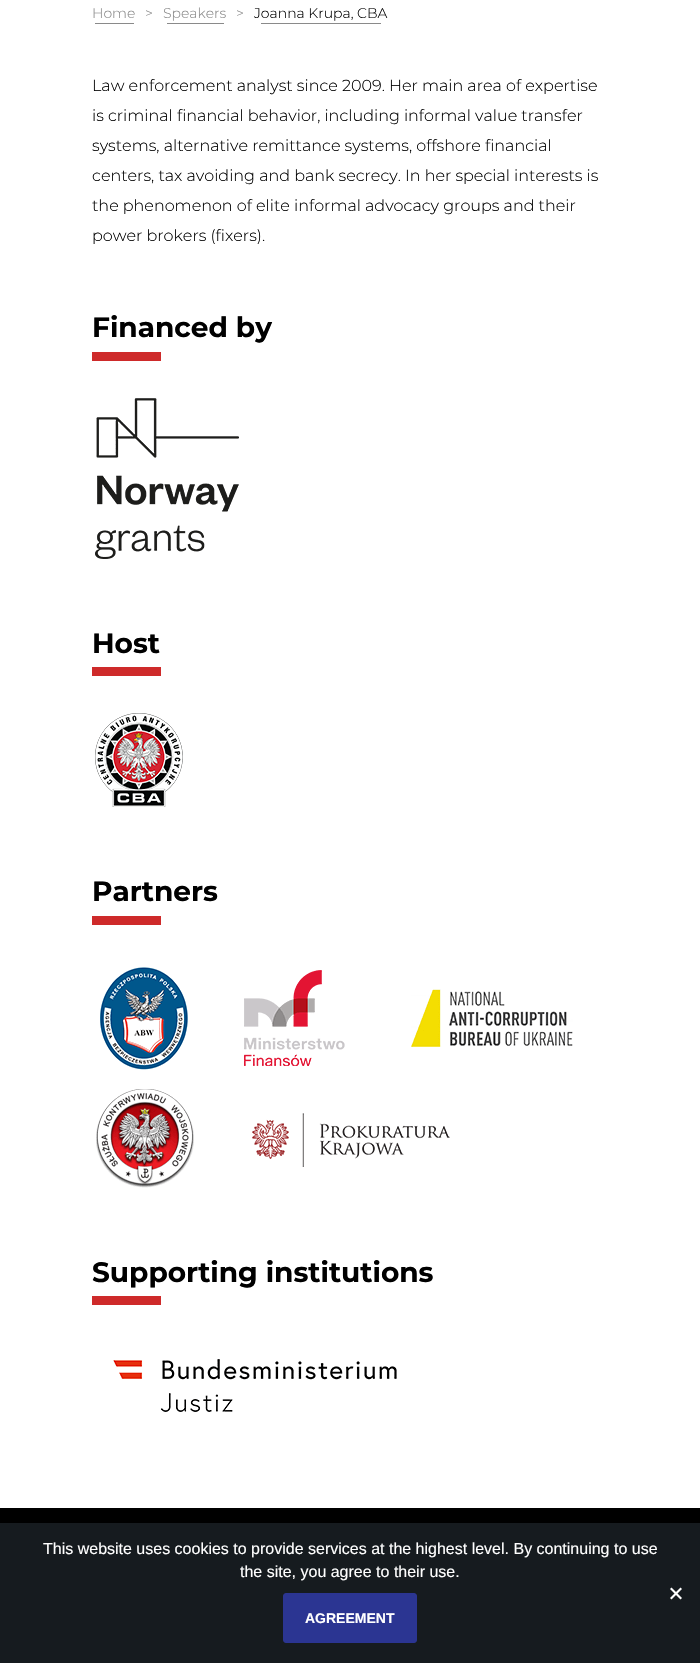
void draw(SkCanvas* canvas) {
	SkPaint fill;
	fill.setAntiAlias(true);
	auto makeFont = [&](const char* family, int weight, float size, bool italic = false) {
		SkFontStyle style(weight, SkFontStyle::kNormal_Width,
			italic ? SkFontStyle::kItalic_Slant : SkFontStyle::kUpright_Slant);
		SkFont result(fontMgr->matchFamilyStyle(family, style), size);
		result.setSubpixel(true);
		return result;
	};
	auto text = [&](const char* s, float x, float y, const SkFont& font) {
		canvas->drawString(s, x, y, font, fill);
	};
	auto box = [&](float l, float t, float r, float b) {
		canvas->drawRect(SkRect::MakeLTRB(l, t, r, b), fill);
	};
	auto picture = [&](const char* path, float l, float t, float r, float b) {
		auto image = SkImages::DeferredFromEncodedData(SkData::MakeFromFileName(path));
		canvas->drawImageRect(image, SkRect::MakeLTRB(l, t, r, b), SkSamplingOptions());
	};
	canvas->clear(0xFFFFFFFF);
	fill.setColor(0xFF8A8A8A);
	box(95, 23, 134, 24);
	box(167, 23, 224, 24);
	box(261, 23, 381, 24);
	fill.setColor(0xFFCE2A2A);
	box(92, 352, 161, 361);
	picture("image0.png", 95, 398, 239, 559);
	box(92, 667, 161, 676);
	picture("image1.png", 95, 713, 183, 807);
	box(92, 916, 161, 925);
	picture("image2.png", 100, 967, 188, 1070);
	picture("image3.png", 244, 970, 345, 1066);
	picture("image4.png", 411, 989, 573, 1047);
	picture("image5.png", 96, 1089, 194, 1188);
	picture("image6.png", 252, 1113, 450, 1167);
	box(92, 1296, 161, 1305);
	picture("image7.png", 113, 1359, 397, 1412);
	fill.setColor(0xFF000000);
	box(0, 1508, 700, 1523);
	fill.setColor(0xFF161B1F);
	box(0, 1523, 700, 1663);
	fill.setColor(0xFFFFFFFF);
	canvas->drawPath(SkPathBuilder().moveTo(680.5f, 1587.5f).lineTo(682, 1589).lineTo(671.5f, 1599.5f).lineTo(670, 1598).close().detach(), fill);
	canvas->drawPath(SkPathBuilder().moveTo(670, 1589).lineTo(671.5f, 1587.5f).lineTo(682, 1598).lineTo(680.5f, 1599.5f).close().detach(), fill);
	fill.setColor(0xFF2B3592);
	canvas->drawRoundRect(SkRect::MakeLTRB(283.5f, 1593.5f, 416.5f, 1642.5f), 2.5f, 2.5f, fill);
	fill.setStyle(SkPaint::kStroke_Style);
	fill.setStrokeWidth(1);
	canvas->drawRoundRect(SkRect::MakeLTRB(283.5f, 1593.5f, 416.5f, 1642.5f), 2.5f, 2.5f, fill);
	auto font1 = makeFont("Montserrat", 300, 14);
	fill.setStyle(SkPaint::kFill_Style);
	fill.setColor(0xFF8A8A8A);
	text("Home", 92, 18, font1);
	text(">", 145, 18, font1);
	text("Speakers", 163, 18, font1);
	text(">", 236, 18, font1);
	fill.setColor(0xFF000000);
	text("Joanna Krupa, CBA", 254, 18, font1);
	auto font2 = makeFont("Montserrat", 300, 16);
	text("Law enforcement analyst since 2009. Her main area of expertise", 92, 91, font2);
	text("is criminal financial behavior, including informal value transfer", 92, 121, font2);
	text("systems, alternative remittance systems, offshore financial", 92, 151, font2);
	text("centers, tax avoiding and bank secrecy. In her special interests is", 92, 181, font2);
	text("the phenomenon of elite informal advocacy groups and their", 92, 211, font2);
	text("power brokers (fixers).", 92, 241, font2);
	auto font3 = makeFont("Montserrat", 700, 28);
	text("Financed by", 92, 337, font3);
	text("Host", 92, 653, font3);
	text("Partners", 92, 901, font3);
	text("Supporting institutions", 92, 1282, font3);
	auto font4 = makeFont("Liberation Sans", 400, 16);
	fill.setColor(0xFFFFFFFF);
	text("This website uses cookies to provide services at the highest level. By continuing to use", 43, 1554, font4);
	text("the site, you agree to their use.", 240, 1577, font4);
	auto font5 = makeFont("Liberation Sans", 700, 14);
	text("AGREEMENT", 305, 1623, font5);
}
